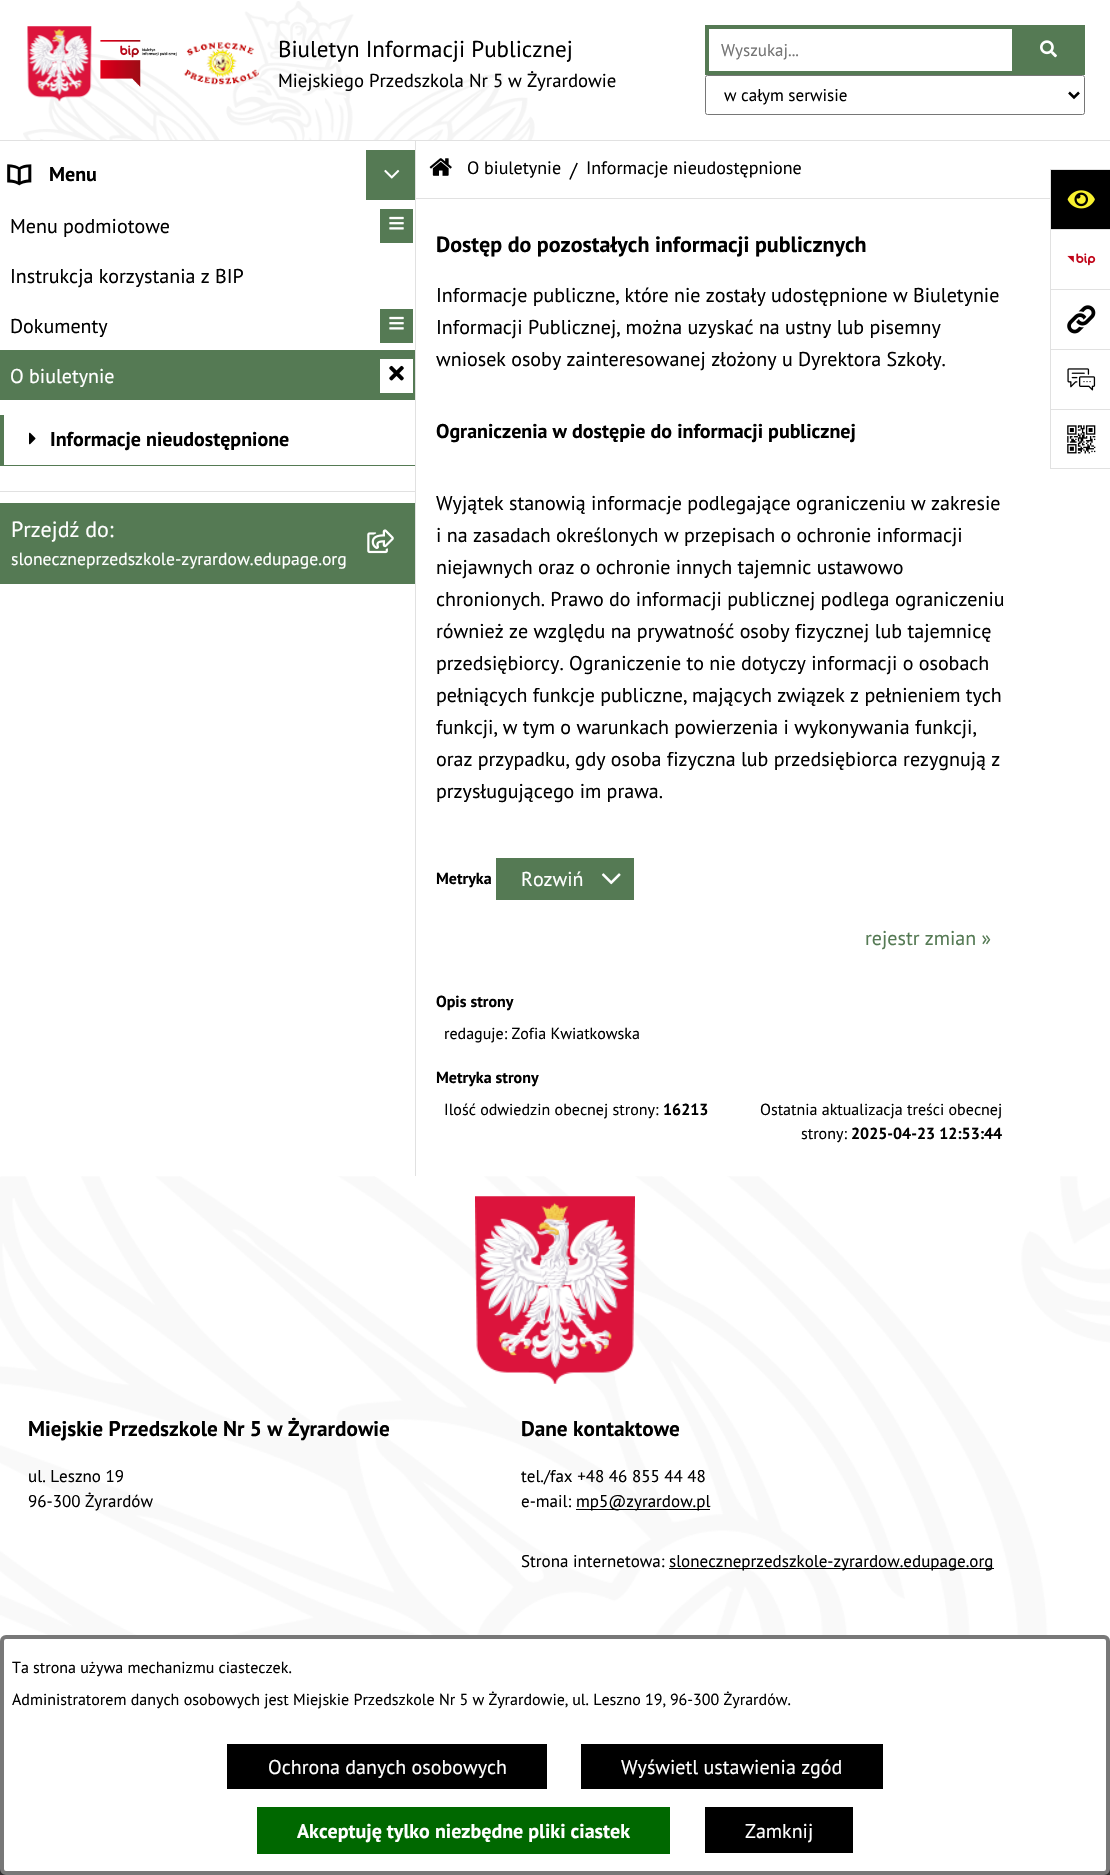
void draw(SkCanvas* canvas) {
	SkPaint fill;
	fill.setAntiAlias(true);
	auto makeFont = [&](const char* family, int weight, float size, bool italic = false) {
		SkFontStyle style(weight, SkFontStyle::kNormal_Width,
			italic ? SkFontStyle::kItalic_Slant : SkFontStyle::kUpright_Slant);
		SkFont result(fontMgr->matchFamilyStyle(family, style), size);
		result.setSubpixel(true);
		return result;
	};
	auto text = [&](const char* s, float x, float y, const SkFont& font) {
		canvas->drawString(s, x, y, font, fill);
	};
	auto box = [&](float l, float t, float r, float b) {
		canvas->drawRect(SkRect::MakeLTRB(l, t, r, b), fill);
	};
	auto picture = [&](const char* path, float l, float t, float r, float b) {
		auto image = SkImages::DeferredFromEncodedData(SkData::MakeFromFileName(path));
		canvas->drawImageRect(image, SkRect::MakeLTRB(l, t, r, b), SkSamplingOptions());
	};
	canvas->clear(0xFFFFFFFF);
	fill.setColor(0xFFE1E1E1);
	box(0, 140, 1110, 141);
	picture("image0.png", 23, 1, 535, 140);
	picture("image1.png", 27, 26, 92, 102);
	picture("image2.png", 100, 40, 177, 87);
	picture("image3.png", 183, 42, 259, 85);
	fill.setStyle(SkPaint::kStroke_Style);
	fill.setStrokeWidth(4);
	fill.setColor(0xFF557A54);
	canvas->drawRect(SkRect::MakeLTRB(707, 27, 1014, 73), fill);
	fill.setStyle(SkPaint::kFill_Style);
	box(1016, 25, 1085, 75);
	picture("image4.png", 1040, 40, 1057, 58);
	fill.setStyle(SkPaint::kStroke_Style);
	fill.setStrokeWidth(1);
	fill.setColor(0xFF767676);
	canvas->drawRoundRect(SkRect::MakeLTRB(705.5f, 75.5f, 1084.5f, 114.5f), 2, 2, fill);
	fill.setStrokeWidth(2.5f);
	fill.setColor(0xFF000000);
	canvas->drawPath(SkPathBuilder().moveTo(1069, 92.5f).lineTo(1074, 97.5f).lineTo(1079, 92.5f).detach(), fill);
	picture("image5.png", 7, 164, 32, 186);
	fill.setStyle(SkPaint::kFill_Style);
	fill.setColor(0xFF557A54);
	box(366, 150, 415, 200);
	picture("image6.png", 384, 169, 400, 179);
	box(380, 209, 413, 243);
	picture("image7.png", 389, 216, 404, 230);
	box(380, 309, 413, 343);
	picture("image7.png", 389, 316, 404, 330);
	box(0, 350, 415, 400);
	fill.setColor(0xFFFFFFFF);
	box(380, 359, 413, 393);
	picture("image8.png", 389, 365, 404, 381);
	fill.setColor(0xFF557A54);
	box(0, 465, 416, 466);
	box(0, 415, 4, 466);
	picture("image9.png", 29, 432, 36, 445);
	fill.setColor(0xFFE1E1E1);
	box(0, 491, 416, 492);
	fill.setColor(0xFF000000);
	box(1051, 170, 1110, 229);
	fill.setColor(0xFFE1E1E1);
	box(1050, 169, 1110, 170);
	box(1050, 169, 1051, 229);
	picture("image10.png", 1067, 190, 1095, 209);
	box(1050, 229, 1110, 230);
	box(1050, 229, 1051, 289);
	picture("image11.png", 1067, 253, 1096, 266);
	box(1050, 289, 1110, 290);
	box(1050, 289, 1051, 349);
	picture("image12.png", 1067, 305, 1096, 334);
	box(1050, 349, 1110, 350);
	box(1050, 349, 1051, 409);
	picture("image13.png", 1067, 368, 1096, 391);
	box(1050, 409, 1110, 410);
	box(1050, 468, 1110, 469);
	box(1050, 409, 1051, 469);
	picture("image14.png", 1067, 425, 1096, 454);
	fill.setColor(0xFF557A54);
	box(0, 503, 415, 584);
	picture("image15.png", 367, 529, 394, 554);
	fill.setColor(0xFFE1E1E1);
	box(415, 141, 416, 1176);
	box(416, 198, 1050, 199);
	picture("image16.png", 429, 158, 452, 176);
	fill.setColor(0xFF557A54);
	box(496, 858, 634, 900);
	picture("image17.png", 601, 873, 621, 885);
	picture("image18.png", 0, 1176, 1110, 1635);
	picture("image19.png", 475, 1196, 635, 1384);
	fill.setColor(0xFF000000);
	box(576, 1509, 710, 1510);
	box(669, 1568, 994, 1569);
	fill.setColor(0xFF2E2E2E);
	box(0, 1869, 1110, 1875);
	fill.setColor(0xFFFFFFFF);
	canvas->drawRoundRect(SkRect::MakeLTRB(2, 1637, 1108, 1873), 4, 4, fill);
	fill.setStyle(SkPaint::kStroke_Style);
	fill.setStrokeWidth(4);
	fill.setColor(0xFF787878);
	canvas->drawRoundRect(SkRect::MakeLTRB(2, 1637, 1108, 1873), 4, 4, fill);
	fill.setStyle(SkPaint::kFill_Style);
	fill.setColor(0xFF000000);
	box(227, 1744, 547, 1789);
	box(581, 1744, 883, 1789);
	fill.setColor(0xFF006800);
	box(257, 1807, 670, 1854);
	fill.setColor(0xFF000000);
	box(705, 1807, 853, 1853);
	auto font1 = makeFont("PT Sans", 400, 23);
	text("Biuletyn Informacji Publicznej", 278, 57, font1);
	auto font2 = makeFont("PT Sans", 400, 18.75f);
	text("Miejskiego Przedszkola Nr 5 w Żyrardowie", 278, 87, font2);
	auto font3 = makeFont("PT Sans", 400, 17);
	fill.setColor(0xFF757575);
	text("Wyszukaj...", 721, 56, font3);
	fill.setColor(0xFF000000);
	text("w całym serwisie", 724, 101, font3);
	auto font4 = makeFont("PT Sans", 700, 20);
	text("Menu", 49, 181, font4);
	auto font5 = makeFont("PT Sans", 400, 20);
	text("Menu podmiotowe", 10, 233, font5);
	text("Instrukcja korzystania z BIP", 10, 283, font5);
	text("Dokumenty", 10, 333, font5);
	fill.setColor(0xFFFFFFFF);
	text("O biuletynie", 10, 383, font5);
	fill.setColor(0xFF000000);
	text("Informacje nieudostępnione", 50, 446, font4);
	auto font6 = makeFont("PT Sans", 400, 22);
	fill.setColor(0xFFFFFFFF);
	text("Przejdź do:", 11, 537, font6);
	auto font7 = makeFont("PT Sans", 400, 17.6f);
	text("sloneczneprzedszkole-zyrardow.edupage.org", 11, 565, font7);
	auto font8 = makeFont("PT Sans", 400, 18);
	fill.setColor(0xFF000000);
	text("O biuletynie", 467, 174, font8);
	text("/", 570, 177, font5);
	text("Informacje nieudostępnione", 586, 174, font8);
	auto font9 = makeFont("PT Sans", 700, 22);
	text("Dostęp do pozostałych informacji publicznych", 436, 252, font9);
	text("Informacje publiczne, które nie zostały udostępnione w Biuletynie", 436, 302, font5);
	text("Informacji Publicznej, można uzyskać na ustny lub pisemny", 436, 334, font5);
	text("wniosek osoby zainteresowanej złożony u Dyrektora Szkoły.", 436, 366, font5);
	text("Ograniczenia w dostępie do informacji publicznej", 436, 438, font4);
	text("Wyjątek stanowią informacje podlegające ograniczeniu w zakresie", 436, 510, font5);
	text("i na zasadach określonych w przepisach o ochronie informacji", 436, 542, font5);
	text("niejawnych oraz o ochronie innych tajemnic ustawowo", 436, 574, font5);
	text("chronionych. Prawo do informacji publicznej podlega ograniczeniu", 436, 606, font5);
	text("również ze względu na prywatność osoby fizycznej lub tajemnicę", 436, 638, font5);
	text("przedsiębiorcy. Ograniczenie to nie dotyczy informacji o osobach", 436, 670, font5);
	text("pełniących funkcje publiczne, mających związek z pełnieniem tych", 436, 702, font5);
	text("funkcji, w tym o warunkach powierzenia i wykonywania funkcji,", 436, 734, font5);
	text("oraz przypadku, gdy osoba fizyczna lub przedsiębiorca rezygnują z", 436, 766, font5);
	text("przysługującego im prawa.", 436, 798, font5);
	auto font10 = makeFont("PT Sans", 700, 16);
	text("Metryka", 436, 884, font10);
	fill.setColor(0xFFFFFFFF);
	text("Rozwiń", 521, 886, font5);
	fill.setColor(0xFF557A54);
	text("rejestr zmian »", 865, 945, font5);
	fill.setColor(0xFF000000);
	text("Opis strony", 436, 1007, font10);
	auto font11 = makeFont("PT Sans", 400, 16);
	text("redaguje: Zofia Kwiatkowska", 444, 1039, font11);
	text("Metryka strony", 436, 1083, font10);
	text("Ilość odwiedzin obecnej strony:", 444, 1115, font11);
	text("16213", 663, 1115, font10);
	text("Ostatnia aktualizacja treści obecnej", 760, 1115, font11);
	text("strony:", 801, 1139, font11);
	text("2025-04-23 12:53:44", 851, 1139, font10);
	auto font12 = makeFont("PT Sans", 700, 21.25f);
	text("Miejskie Przedszkole Nr 5 w Żyrardowie", 28, 1436, font12);
	text("ul. Leszno 19", 28, 1482, font3);
	text("96-300 Żyrardów", 28, 1507, font3);
	text("Dane kontaktowe", 521, 1436, font12);
	text("tel./fax +48 46 855 44 48", 521, 1482, font3);
	text("e-mail:", 521, 1507, font3);
	text("mp5@zyrardow.pl", 576, 1507, font3);
	text("Strona internetowa:", 521, 1567, font3);
	text("sloneczneprzedszkole-zyrardow.edupage.org", 669, 1567, font3);
	text("Ta strona używa mechanizmu ciasteczek.", 12, 1673, font11);
	text("Administratorem danych osobowych jest Miejskie Przedszkole Nr 5 w Żyrardowie, ul. Leszno 19, 96-300 Żyrardów.", 12, 1705, font11);
	fill.setColor(0xFFFFFFFF);
	text("Ochrona danych osobowych", 268, 1774, font5);
	text("Wyświetl ustawienia zgód", 621, 1774, font5);
	text("Akceptuję tylko niezbędne pliki ciastek", 297, 1838, font4);
	text("Zamknij", 745, 1838, font5);
}
